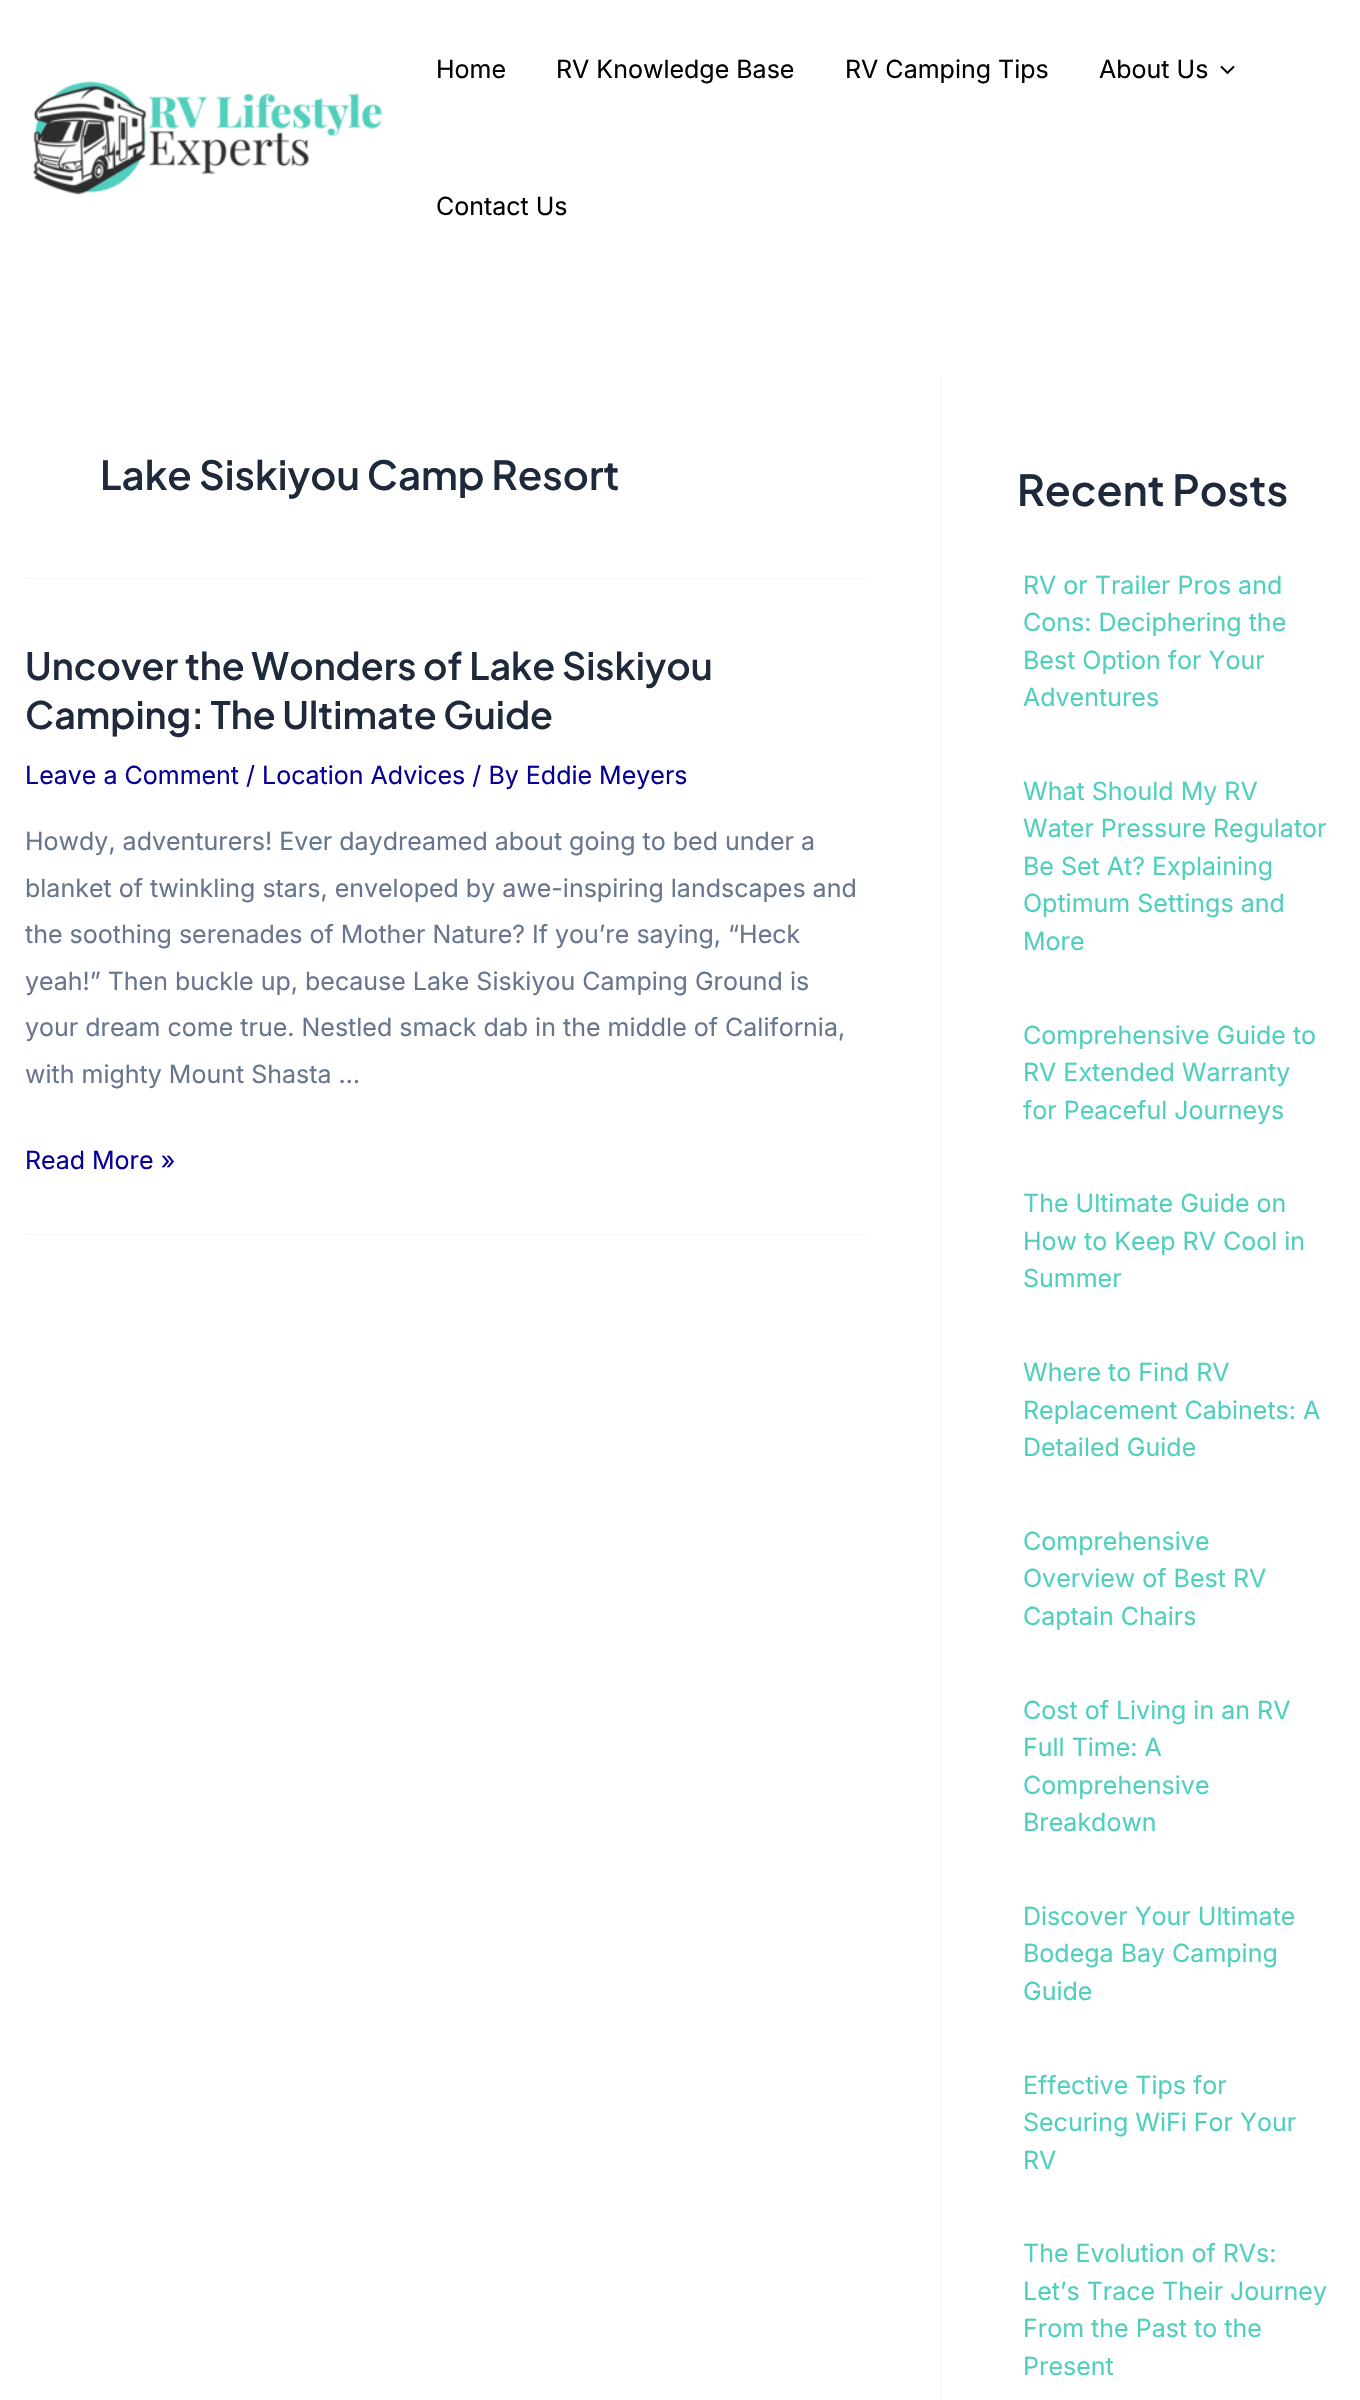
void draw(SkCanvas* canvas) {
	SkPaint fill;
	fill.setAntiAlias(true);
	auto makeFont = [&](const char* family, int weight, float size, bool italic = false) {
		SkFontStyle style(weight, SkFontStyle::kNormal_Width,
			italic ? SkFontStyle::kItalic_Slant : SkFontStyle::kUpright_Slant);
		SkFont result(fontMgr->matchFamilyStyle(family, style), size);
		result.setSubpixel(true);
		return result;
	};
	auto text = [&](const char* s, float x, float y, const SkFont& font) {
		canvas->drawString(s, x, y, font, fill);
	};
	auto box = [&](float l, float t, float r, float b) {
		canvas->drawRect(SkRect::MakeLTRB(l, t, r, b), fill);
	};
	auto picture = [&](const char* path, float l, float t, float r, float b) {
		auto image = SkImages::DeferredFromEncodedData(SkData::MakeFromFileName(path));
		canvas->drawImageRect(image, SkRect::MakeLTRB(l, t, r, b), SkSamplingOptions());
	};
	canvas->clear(0xFFFFFFFF);
	picture("image0.png", 32, 81, 383, 195);
	picture("image1.png", 1220, 65, 1235, 75);
	fill.setColor(0xFFF2F5F7);
	box(941, 375, 942, 2400);
	box(25, 578, 866, 579);
	box(25, 1234, 866, 1235);
	auto font1 = makeFont("Inter", 400, 25);
	fill.setColor(0xFF000000);
	text("Home", 436, 78, font1);
	text("RV Knowledge Base", 556, 78, font1);
	text("RV Camping Tips", 845, 78, font1);
	text("About Us", 1099, 78, font1);
	text("Contact Us", 436, 215, font1);
	auto font2 = makeFont("Plus Jakarta Sans", 600, 40);
	fill.setColor(0xFF1E293B);
	text("Lake Siskiyou Camp Resort", 100, 490, font2);
	auto font3 = makeFont("Plus Jakarta Sans", 600, 37.5f);
	text("Uncover the Wonders of Lake Siskiyou", 25, 680, font3);
	text("Camping: The Ultimate Guide", 25, 729, font3);
	fill.setColor(0xFF060097);
	text("Leave a Comment / Location Advices / By Eddie Meyers", 25, 784, font1);
	fill.setColor(0xFF67768E);
	text("Howdy, adventurers! Ever daydreamed about going to bed under a", 25, 850, font1);
	text("blanket of twinkling stars, enveloped by awe-inspiring landscapes and", 25, 897, font1);
	text("the soothing serenades of Mother Nature? If you’re saying, “Heck", 25, 943, font1);
	text("yeah!” Then buckle up, because Lake Siskiyou Camping Ground is", 25, 990, font1);
	text("your dream come true. Nestled smack dab in the middle of California,", 25, 1036, font1);
	text("with mighty Mount Shasta …", 25, 1083, font1);
	fill.setColor(0xFF060097);
	text("Read More »", 25, 1169, font1);
	auto font4 = makeFont("Plus Jakarta Sans", 600, 42.5f);
	fill.setColor(0xFF1E293B);
	text("Recent Posts", 1017, 506, font4);
	fill.setColor(0xFF50CFBD);
	text("RV or Trailer Pros and", 1023, 594, font1);
	text("Cons: Deciphering the", 1023, 631, font1);
	text("Best Option for Your", 1023, 669, font1);
	text("Adventures", 1023, 706, font1);
	text("What Should My RV", 1023, 800, font1);
	text("Water Pressure Regulator", 1023, 837, font1);
	text("Be Set At? Explaining", 1023, 875, font1);
	text("Optimum Settings and", 1023, 912, font1);
	text("More", 1023, 950, font1);
	text("Comprehensive Guide to", 1023, 1044, font1);
	text("RV Extended Warranty", 1023, 1081, font1);
	text("for Peaceful Journeys", 1023, 1119, font1);
	text("The Ultimate Guide on", 1023, 1212, font1);
	text("How to Keep RV Cool in", 1023, 1250, font1);
	text("Summer", 1023, 1287, font1);
	text("Where to Find RV", 1023, 1381, font1);
	text("Replacement Cabinets: A", 1023, 1419, font1);
	text("Detailed Guide", 1023, 1456, font1);
	text("Comprehensive", 1023, 1550, font1);
	text("Overview of Best RV", 1023, 1587, font1);
	text("Captain Chairs", 1023, 1625, font1);
	text("Cost of Living in an RV", 1023, 1719, font1);
	text("Full Time: A", 1023, 1756, font1);
	text("Comprehensive", 1023, 1794, font1);
	text("Breakdown", 1023, 1831, font1);
	text("Discover Your Ultimate", 1023, 1925, font1);
	text("Bodega Bay Camping", 1023, 1962, font1);
	text("Guide", 1023, 2000, font1);
	text("Effective Tips for", 1023, 2094, font1);
	text("Securing WiFi For Your", 1023, 2131, font1);
	text("RV", 1023, 2169, font1);
	text("The Evolution of RVs:", 1023, 2262, font1);
	text("Let’s Trace Their Journey", 1023, 2300, font1);
	text("From the Past to the", 1023, 2337, font1);
	text("Present", 1023, 2375, font1);
}
